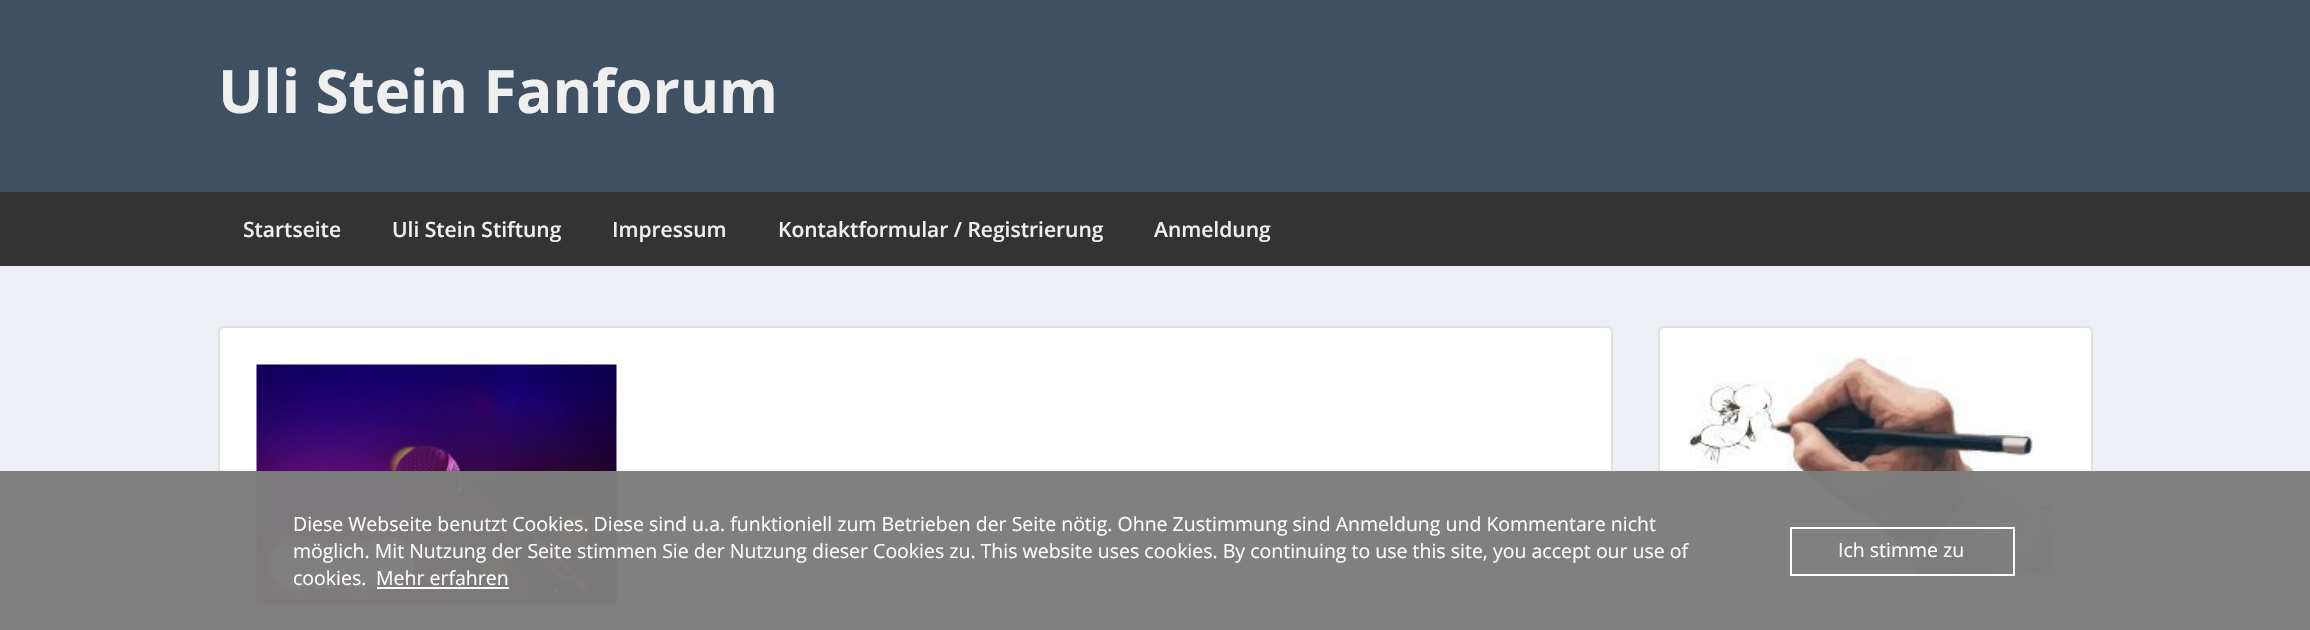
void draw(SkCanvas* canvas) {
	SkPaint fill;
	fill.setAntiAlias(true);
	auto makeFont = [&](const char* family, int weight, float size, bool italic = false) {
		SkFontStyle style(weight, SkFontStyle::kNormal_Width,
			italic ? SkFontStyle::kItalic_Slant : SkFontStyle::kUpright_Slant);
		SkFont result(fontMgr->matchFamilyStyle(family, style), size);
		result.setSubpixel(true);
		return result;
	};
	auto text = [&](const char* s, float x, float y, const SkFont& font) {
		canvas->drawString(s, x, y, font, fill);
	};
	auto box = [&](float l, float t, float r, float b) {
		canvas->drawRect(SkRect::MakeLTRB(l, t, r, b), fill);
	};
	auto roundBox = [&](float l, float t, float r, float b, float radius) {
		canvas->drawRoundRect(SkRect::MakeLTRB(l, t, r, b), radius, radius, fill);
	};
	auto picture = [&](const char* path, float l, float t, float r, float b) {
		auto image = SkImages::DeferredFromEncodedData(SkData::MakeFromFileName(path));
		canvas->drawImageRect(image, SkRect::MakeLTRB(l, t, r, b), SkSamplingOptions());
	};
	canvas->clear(0xFFECF0F5);
	fill.setColor(0xFF3E5062);
	box(0, 0, 2310, 192);
	fill.setColor(0xFF333333);
	box(0, 192, 2310, 266);
	fill.setColor(0xFFFFFFFF);
	roundBox(218, 326, 1613, 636, 6);
	fill.setStyle(SkPaint::kStroke_Style);
	fill.setStrokeWidth(2);
	fill.setColor(0x1F000000);
	canvas->drawRoundRect(SkRect::MakeLTRB(219, 327, 1612, 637), 5, 5, fill);
	picture("image0.png", 256, 364, 617, 605);
	fill.setStyle(SkPaint::kFill_Style);
	fill.setColor(0xFFFFFFFF);
	roundBox(1658, 326, 2093, 606, 6);
	fill.setStyle(SkPaint::kStroke_Style);
	fill.setColor(0x1F000000);
	canvas->drawRoundRect(SkRect::MakeLTRB(1659, 327, 2092, 605), 5, 5, fill);
	picture("image1.png", 1689, 357, 2054, 575);
	fill.setStyle(SkPaint::kFill_Style);
	fill.setColor(0xF77C7C7C);
	box(0, 471, 2310, 630);
	fill.setColor(0xF7FFFFFF);
	box(377, 587, 509, 589);
	fill.setStyle(SkPaint::kStroke_Style);
	canvas->drawRect(SkRect::MakeLTRB(1791, 528, 2014, 575), fill);
	auto font1 = makeFont("Open Sans", 700, 60);
	fill.setStyle(SkPaint::kFill_Style);
	fill.setColor(0xFFEFEFEF);
	text("Uli Stein Fanforum", 218, 113, font1);
	auto font2 = makeFont("Open Sans", 600, 21);
	text("Startseite", 243, 237, font2);
	text("Uli Stein Stiftung", 392, 237, font2);
	text("Impressum", 612, 237, font2);
	text("Kontaktformular / Registrierung", 778, 237, font2);
	text("Anmeldung", 1154, 237, font2);
	auto font3 = makeFont("Open Sans", 400, 19.5f);
	fill.setColor(0xFFFBFBFB);
	text("Diese Webseite benutzt Cookies. Diese sind u.a. funktioniell zum Betrieben der Seite nötig. Ohne Zustimmung sind Anmeldung und Kommentare nicht", 293, 531, font3);
	text("möglich. Mit Nutzung der Seite stimmen Sie der Nutzung dieser Cookies zu. This website uses cookies. By continuing to use this site, you accept our use of", 293, 558, font3);
	text("cookies.", 293, 585, font3);
	text("Mehr erfahren", 376, 585, font3);
	text("Ich stimme zu", 1838, 557, font3);
}
